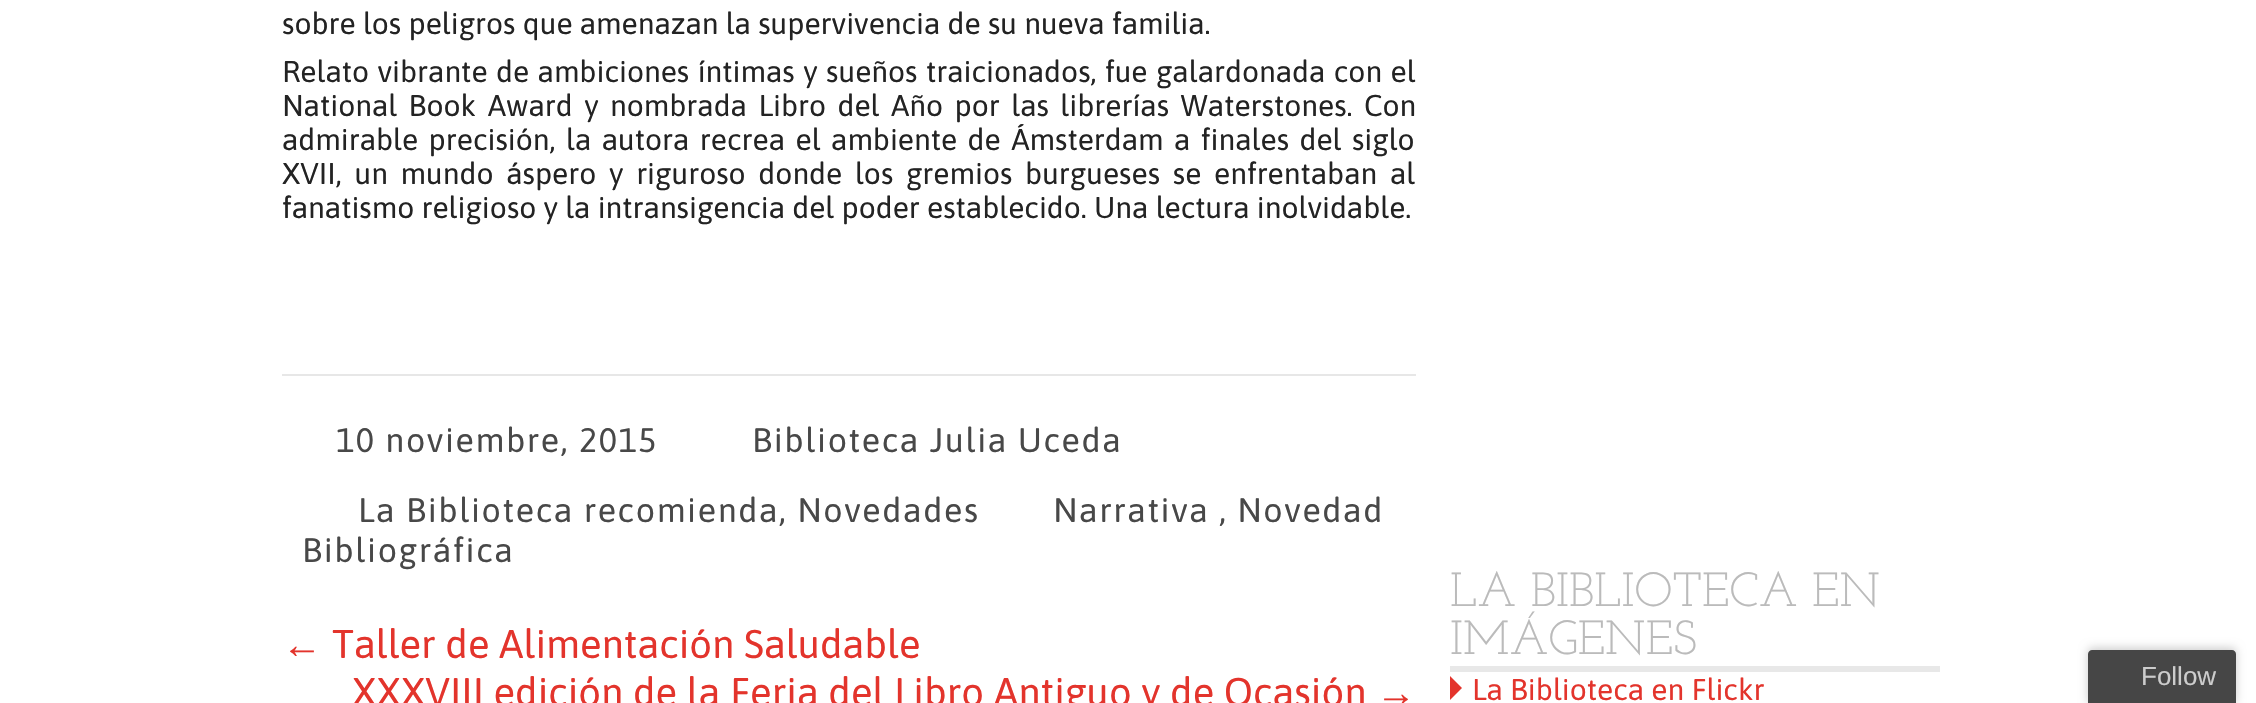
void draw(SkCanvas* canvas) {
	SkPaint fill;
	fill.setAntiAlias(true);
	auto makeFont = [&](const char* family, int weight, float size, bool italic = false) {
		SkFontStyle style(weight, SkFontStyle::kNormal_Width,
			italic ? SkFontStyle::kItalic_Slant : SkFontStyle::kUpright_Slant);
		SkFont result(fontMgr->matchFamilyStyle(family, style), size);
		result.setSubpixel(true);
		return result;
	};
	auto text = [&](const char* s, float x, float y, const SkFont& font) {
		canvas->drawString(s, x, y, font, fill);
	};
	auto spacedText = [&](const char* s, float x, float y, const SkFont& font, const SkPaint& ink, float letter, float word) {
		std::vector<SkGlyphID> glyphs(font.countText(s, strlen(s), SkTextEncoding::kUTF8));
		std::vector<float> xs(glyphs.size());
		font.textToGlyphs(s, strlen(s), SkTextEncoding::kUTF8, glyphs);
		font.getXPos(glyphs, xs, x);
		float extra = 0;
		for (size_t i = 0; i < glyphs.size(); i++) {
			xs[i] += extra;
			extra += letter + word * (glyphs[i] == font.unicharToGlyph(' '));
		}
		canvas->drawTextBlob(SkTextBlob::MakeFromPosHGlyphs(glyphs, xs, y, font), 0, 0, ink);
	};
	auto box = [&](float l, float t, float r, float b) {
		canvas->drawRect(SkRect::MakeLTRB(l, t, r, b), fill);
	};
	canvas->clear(0xFFFFFFFF);
	fill.setColor(0xFFE7E7E7);
	box(282, 374, 1416, 376);
	fill.setColor(0xFFE8E8E8);
	box(1450, 666, 1940, 672);
	fill.setColor(0xFFE3342C);
	canvas->drawPath(SkPathBuilder().moveTo(1450, 700).lineTo(1450, 676).lineTo(1462, 688).close().detach(), fill);
	fill.setColor(0x33000000);
	fill.setMaskFilter(SkMaskFilter::MakeBlur(kNormal_SkBlurStyle, 5));
	canvas->drawRoundRect(SkRect::MakeLTRB(2088, 648, 2236, 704), 4, 4, fill);
	fill.setMaskFilter(nullptr);
	fill.setColor(0xFF464646);
	canvas->drawPath(SkPathBuilder().moveTo(2092, 650).lineTo(2232, 650).cubicTo(2234, 650, 2236, 652, 2236, 654).lineTo(2236, 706).lineTo(2088, 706).lineTo(2088, 654).cubicTo(2088, 652, 2090, 650, 2092, 650).close().detach(), fill);
	auto font1 = makeFont("Asap", 400, 30);
	fill.setColor(0xFF232323);
	text("sobre los peligros que amenazan la supervivencia de su nueva familia.", 282, 34, font1);
	spacedText("Relato vibrante de ambiciones íntimas y sueños traicionados, fue galardonada con el", 282, 82, font1, fill, 0, 1.25f);
	spacedText("National Book Award y nombrada Libro del Año por las librerías Waterstones. Con", 282, 116, font1, fill, 0, 4.25f);
	spacedText("admirable precisión, la autora recrea el ambiente de Ámsterdam a finales del siglo", 282, 150, font1, fill, 0, 3.25f);
	spacedText("XVII, un mundo áspero y riguroso donde los gremios burgueses se enfrentaban al", 282, 184, font1, fill, 0, 5.5f);
	text("fanatismo religioso y la intransigencia del poder establecido. Una lectura inolvidable.", 282, 218, font1);
	auto font2 = makeFont("Asap", 400, 34);
	fill.setColor(0xFF484848);
	spacedText("10 noviembre, 2015", 336, 452, font2, fill, 1.6f, 0);
	spacedText("Biblioteca Julia Uceda", 752, 452, font2, fill, 1.6f, 0);
	spacedText("La Biblioteca recomienda, Novedades", 358, 522, font2, fill, 1.6f, 0);
	spacedText("Narrativa , Novedad", 1053, 522, font2, fill, 1.6f, 0);
	spacedText("Bibliográfica", 302, 562, font2, fill, 1.6f, 0);
	auto font3 = makeFont("Liberation Sans", 400, 40);
	fill.setColor(0xFFE3342C);
	text("←", 282, 658, font3);
	auto font4 = makeFont("Asap", 400, 40);
	text("Taller de Alimentación Saludable", 332, 658, font4);
	text("XXXVIII edición de la Feria del Libro Antiguo y de Ocasión", 352, 706, font4);
	text("→", 1376, 706, font3);
	auto font5 = makeFont("Josefin Slab", 100, 48);
	fill.setColor(0xFFBBBBBB);
	text("LA BIBLIOTECA EN", 1450, 606, font5);
	text("IMÁGENES", 1450, 654, font5);
	fill.setColor(0xFFE3342C);
	text("La Biblioteca en Flickr", 1472, 700, font1);
	auto font6 = makeFont("Liberation Sans", 400, 26);
	fill.setColor(0xFFCCCCCC);
	text("Follow", 2141, 685, font6);
}
